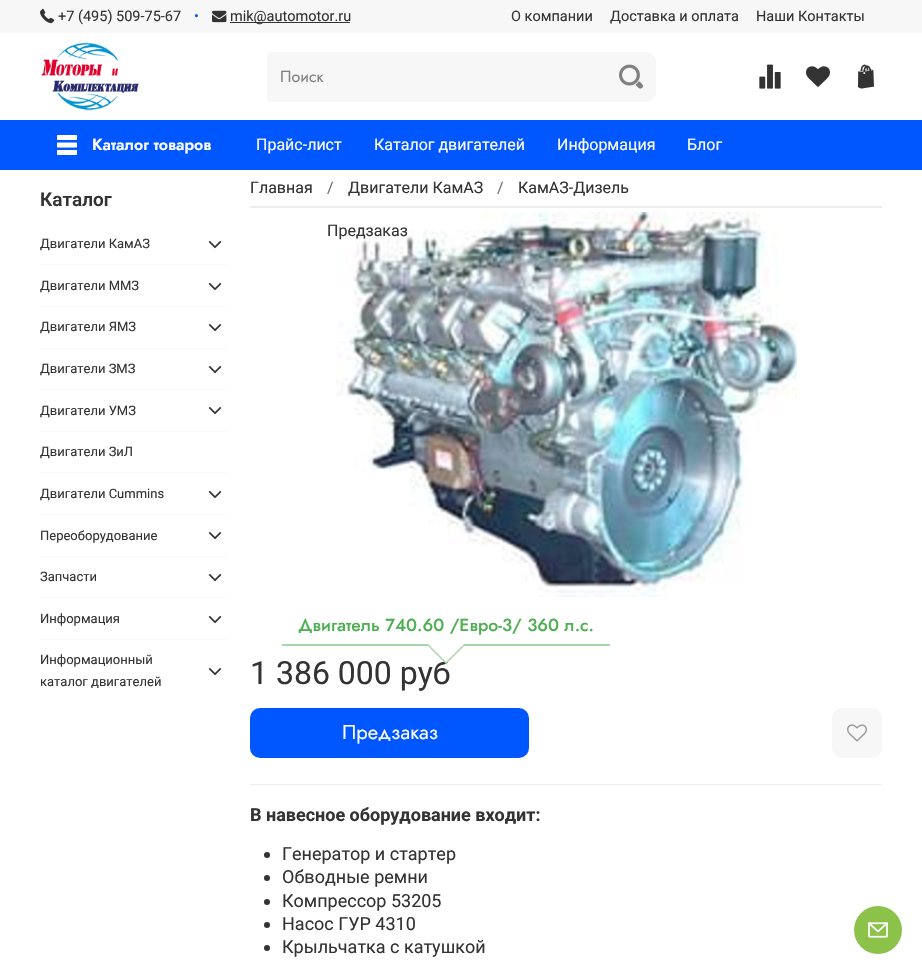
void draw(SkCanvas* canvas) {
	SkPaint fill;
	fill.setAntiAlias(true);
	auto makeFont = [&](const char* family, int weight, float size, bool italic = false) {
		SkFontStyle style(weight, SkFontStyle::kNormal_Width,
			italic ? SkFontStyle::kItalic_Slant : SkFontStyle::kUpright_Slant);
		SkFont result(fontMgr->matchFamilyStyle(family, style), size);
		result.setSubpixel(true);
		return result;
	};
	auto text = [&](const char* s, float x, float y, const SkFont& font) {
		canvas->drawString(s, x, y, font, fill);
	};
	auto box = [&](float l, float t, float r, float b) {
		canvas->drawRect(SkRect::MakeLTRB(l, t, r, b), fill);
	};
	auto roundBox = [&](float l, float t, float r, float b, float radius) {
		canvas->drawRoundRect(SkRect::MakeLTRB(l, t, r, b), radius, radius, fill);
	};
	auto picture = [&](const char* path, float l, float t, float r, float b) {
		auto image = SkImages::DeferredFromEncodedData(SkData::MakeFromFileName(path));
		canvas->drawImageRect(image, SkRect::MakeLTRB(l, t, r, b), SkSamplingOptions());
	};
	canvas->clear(0xFFFFFFFF);
	fill.setColor(0xFFF7F7F7);
	box(0, 0, 922, 33);
	picture("image0.png", 40, 8, 55, 24);
	picture("image1.png", 212, 10, 227, 23);
	fill.setColor(0xFF333333);
	box(230, 22, 350, 23);
	picture("image2.png", 41, 41, 139, 111);
	fill.setColor(0xFFF7F7F7);
	canvas->drawPath(SkPathBuilder().moveTo(271, 52).lineTo(606, 52).lineTo(606, 102).lineTo(271, 102).cubicTo(269, 102, 267, 100, 267, 98).lineTo(267, 56).cubicTo(267, 54, 269, 52, 271, 52).close().detach(), fill);
	canvas->drawPath(SkPathBuilder().moveTo(606, 52).lineTo(646, 52).cubicTo(651.5f, 52, 656, 56.5f, 656, 62).lineTo(656, 92).cubicTo(656, 97.5f, 651.5f, 102, 646, 102).lineTo(606, 102).close().detach(), fill);
	picture("image3.png", 619, 64, 643, 89);
	picture("image4.png", 759, 64, 781, 89);
	picture("image5.png", 806, 66, 830, 87);
	picture("image6.png", 858, 64, 874, 89);
	fill.setColor(0xFF0057FF);
	box(0, 120, 922, 170);
	picture("image7.png", 57, 135, 77, 155);
	fill.setColor(0xFFF7F7F7);
	box(40, 264, 227, 265);
	picture("image8.png", 208, 241, 222, 249);
	box(40, 306, 227, 307);
	picture("image8.png", 208, 283, 222, 291);
	box(40, 348, 227, 349);
	picture("image8.png", 208, 324, 222, 332);
	box(40, 389, 227, 390);
	picture("image8.png", 208, 366, 222, 374);
	box(40, 431, 227, 432);
	picture("image8.png", 208, 407, 222, 415);
	box(40, 472, 227, 473);
	box(40, 514, 227, 515);
	picture("image8.png", 208, 491, 222, 499);
	box(40, 556, 227, 557);
	picture("image8.png", 208, 532, 222, 540);
	box(40, 597, 227, 598);
	picture("image8.png", 208, 574, 222, 582);
	box(40, 639, 227, 640);
	picture("image8.png", 208, 616, 222, 624);
	picture("image8.png", 208, 668, 222, 676);
	fill.setColor(0xFFEDEDED);
	box(250, 206, 882, 208);
	picture("image9.png", 336, 212, 797, 597);
	fill.setColor(0xFFA5D6A7);
	box(282, 644, 610, 646);
	fill.setColor(0xFF0057FF);
	roundBox(250, 708, 529, 758, 10);
	fill.setColor(0xFFF7F7F7);
	roundBox(832, 708, 882, 758, 10);
	picture("image10.png", 847, 724, 867, 742);
	fill.setColor(0xFFEDEDED);
	box(250, 784, 882, 785);
	fill.setColor(0xFF333333);
	canvas->drawCircle(267, 855, 3, fill);
	canvas->drawCircle(267, 878, 3, fill);
	canvas->drawCircle(267, 902, 3, fill);
	canvas->drawCircle(267, 925, 3, fill);
	canvas->drawCircle(267, 948, 3, fill);
	fill.setColor(0xFF8CC249);
	canvas->drawCircle(878, 930, 24, fill);
	picture("image11.png", 868, 922, 888, 938);
	auto font1 = makeFont("Roboto", 400, 14.5f);
	fill.setColor(0xFF333333);
	text("+7 (495) 509-75-67", 58, 21, font1);
	fill.setColor(0xFF0057FF);
	text("•", 194, 21, font1);
	fill.setColor(0xFF333333);
	text("mik@automotor.ru", 230, 21, font1);
	text("О компании", 511, 21, font1);
	text("Доставка и оплата", 610, 21, font1);
	text("Наши Контакты", 756, 21, font1);
	auto font2 = makeFont("Jost", 400, 16);
	fill.setColor(0xFF808080);
	text("Поиск", 280, 82, font2);
	auto font3 = makeFont("Jost", 600, 16);
	fill.setColor(0xFFFFFFFF);
	text("Каталог товаров", 92, 150, font3);
	auto font4 = makeFont("Roboto", 400, 16);
	text("Прайс-лист", 256, 150, font4);
	text("Каталог двигателей", 374, 150, font4);
	text("Информация", 557, 150, font4);
	text("Блог", 687, 150, font4);
	auto font5 = makeFont("Roboto", 600, 19);
	fill.setColor(0xFF333333);
	text("Каталог", 40, 206, font5);
	auto font6 = makeFont("Roboto", 400, 13);
	text("Двигатели КамАЗ", 40, 248, font6);
	text("Двигатели ММЗ", 40, 290, font6);
	text("Двигатели ЯМЗ", 40, 331, font6);
	text("Двигатели ЗМЗ", 40, 373, font6);
	text("Двигатели УМЗ", 40, 415, font6);
	text("Двигатели ЗиЛ", 40, 456, font6);
	text("Двигатели Cummins", 40, 498, font6);
	text("Переоборудование", 40, 540, font6);
	text("Запчасти", 40, 581, font6);
	text("Информация", 40, 623, font6);
	text("Информационный", 40, 664, font6);
	text("каталог двигателей", 40, 686, font6);
	text("Главная", 250, 193, font4);
	fill.setColor(0xFF707070);
	text("/", 327, 193, font4);
	fill.setColor(0xFF333333);
	text("Двигатели КамАЗ", 348, 193, font4);
	fill.setColor(0xFF707070);
	text("/", 497, 193, font4);
	fill.setColor(0xFF333333);
	text("КамАЗ-Дизель", 518, 193, font4);
	text("Предзаказ", 327, 236, font4);
	auto font7 = makeFont("Jost", 500, 17.6f);
	fill.setColor(0xFF4CAF50);
	text("Двигатель 740.60 /Евро-3/ 360 л.с.", 298, 631, font7);
	auto font8 = makeFont("Roboto", 400, 32);
	fill.setColor(0xFF333333);
	text("1 386 000 руб", 250, 684, font8);
	fill.setColor(0xFFA5D6A7);
	canvas->drawPath(SkPathBuilder().moveTo(426, 644).lineTo(466, 644).lineTo(446, 664).close().detach(), fill);
	fill.setColor(0xFFFFFFFF);
	canvas->drawPath(SkPathBuilder().moveTo(426, 642).lineTo(466, 642).lineTo(446, 662).close().detach(), fill);
	auto font9 = makeFont("Jost", 400, 20);
	text("Предзаказ", 342, 739, font9);
	auto font10 = makeFont("Roboto", 700, 18);
	fill.setColor(0xFF333333);
	text("В навесное оборудование входит:", 250, 821, font10);
	auto font11 = makeFont("Roboto", 400, 18);
	text("Генератор и стартер", 282, 860, font11);
	text("Обводные ремни", 282, 883, font11);
	text("Компрессор 53205", 282, 907, font11);
	text("Насос ГУР 4310", 282, 930, font11);
	text("Крыльчатка с катушкой", 282, 953, font11);
}
